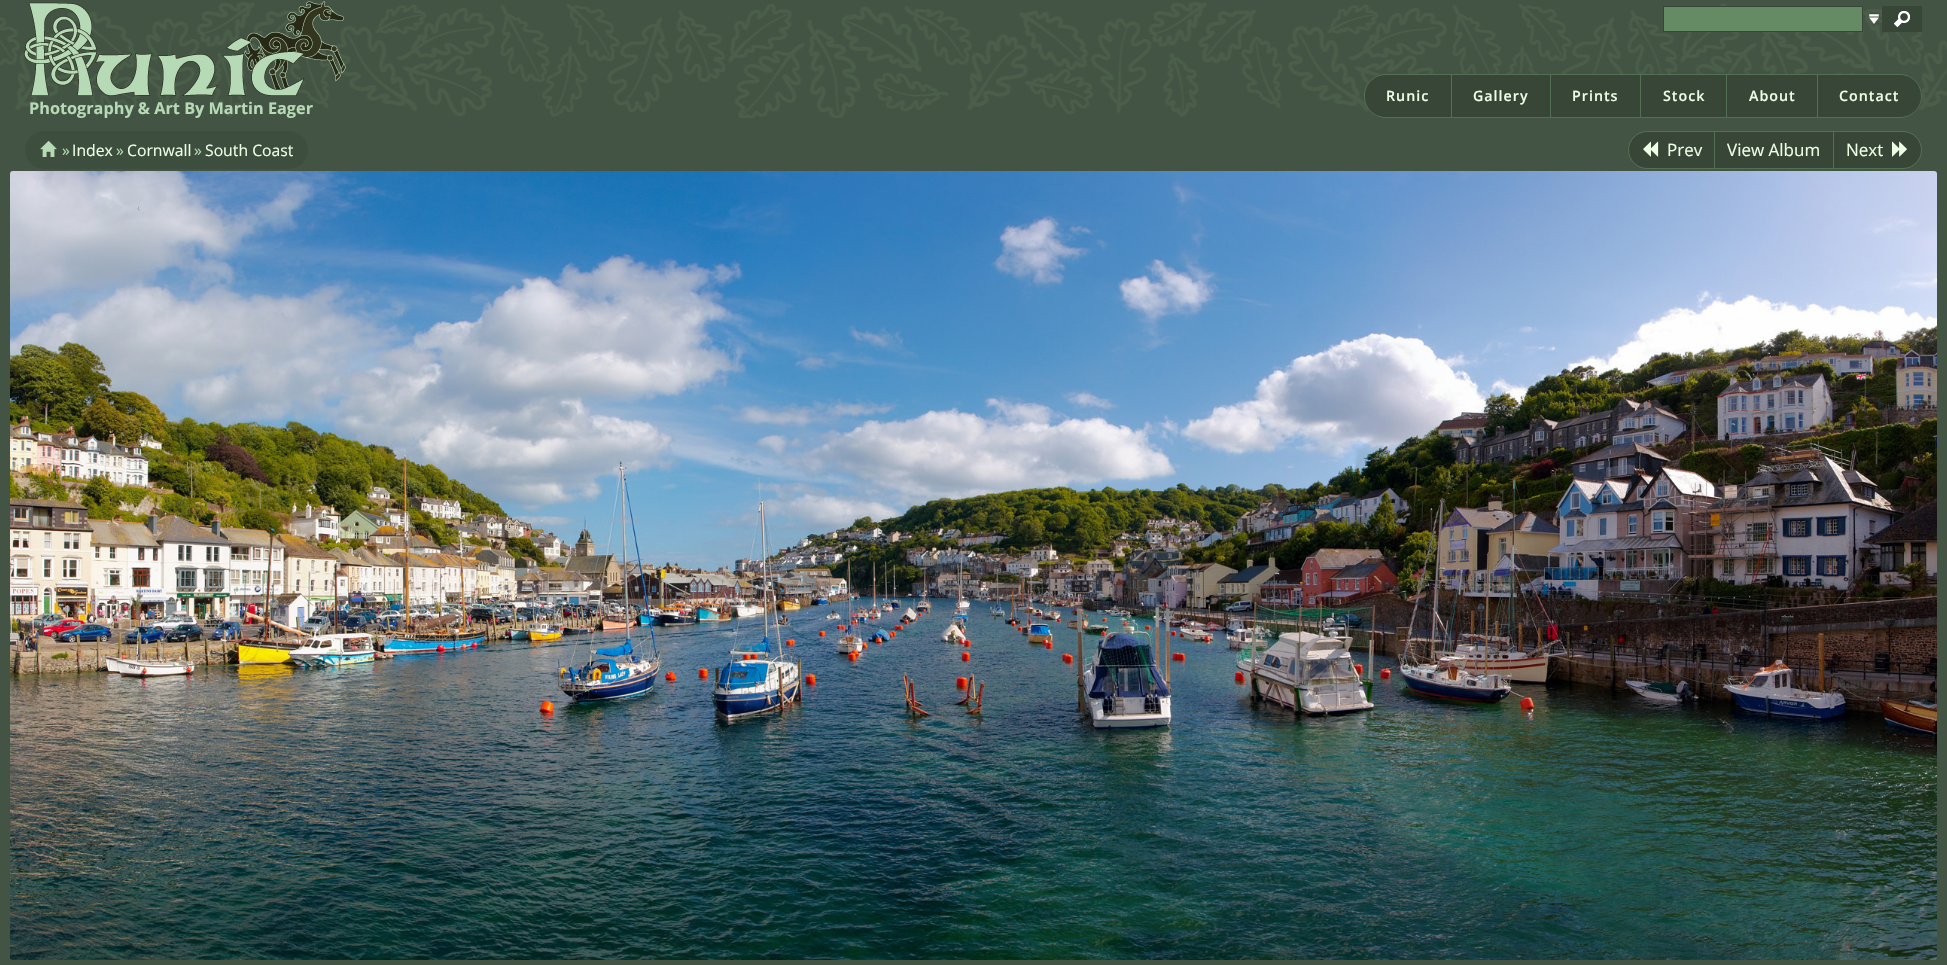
void draw(SkCanvas* canvas) {
	SkPaint fill;
	fill.setAntiAlias(true);
	auto makeFont = [&](const char* family, int weight, float size, bool italic = false) {
		SkFontStyle style(weight, SkFontStyle::kNormal_Width,
			italic ? SkFontStyle::kItalic_Slant : SkFontStyle::kUpright_Slant);
		SkFont result(fontMgr->matchFamilyStyle(family, style), size);
		result.setSubpixel(true);
		return result;
	};
	auto text = [&](const char* s, float x, float y, const SkFont& font) {
		canvas->drawString(s, x, y, font, fill);
	};
	auto spacedText = [&](const char* s, float x, float y, const SkFont& font, const SkPaint& ink, float letter, float word) {
		std::vector<SkGlyphID> glyphs(font.countText(s, strlen(s), SkTextEncoding::kUTF8));
		std::vector<float> xs(glyphs.size());
		font.textToGlyphs(s, strlen(s), SkTextEncoding::kUTF8, glyphs);
		font.getXPos(glyphs, xs, x);
		float extra = 0;
		for (size_t i = 0; i < glyphs.size(); i++) {
			xs[i] += extra;
			extra += letter + word * (glyphs[i] == font.unicharToGlyph(' '));
		}
		canvas->drawTextBlob(SkTextBlob::MakeFromPosHGlyphs(glyphs, xs, y, font), 0, 0, ink);
	};
	auto box = [&](float l, float t, float r, float b) {
		canvas->drawRect(SkRect::MakeLTRB(l, t, r, b), fill);
	};
	auto roundBox = [&](float l, float t, float r, float b, float radius) {
		canvas->drawRoundRect(SkRect::MakeLTRB(l, t, r, b), radius, radius, fill);
	};
	auto picture = [&](const char* path, float l, float t, float r, float b) {
		auto image = SkImages::DeferredFromEncodedData(SkData::MakeFromFileName(path));
		canvas->drawImageRect(image, SkRect::MakeLTRB(l, t, r, b), SkSamplingOptions());
	};
	canvas->clear(0xFF445444);
	picture("image0.png", 0, 2, 1947, 118);
	fill.setColor(0xFF648B64);
	canvas->drawRect(SkRect::MakeLTRB(1663.5f, 6.5f, 1862.5f, 31.5f), fill);
	fill.setStyle(SkPaint::kStroke_Style);
	fill.setStrokeWidth(1);
	fill.setColor(0xFF374637);
	canvas->drawRect(SkRect::MakeLTRB(1663.5f, 6.5f, 1862.5f, 31.5f), fill);
	picture("image1.png", 1869, 14, 1879, 24);
	fill.setStyle(SkPaint::kFill_Style);
	roundBox(1882, 6, 1922, 32, 1);
	picture("image2.png", 1894, 11, 1910, 27);
	canvas->drawPath(SkPathBuilder().moveTo(1386, 74).lineTo(1452, 74).lineTo(1452, 118).lineTo(1386, 118).cubicTo(1374, 118, 1364, 108, 1364, 96).cubicTo(1364, 84, 1374, 74, 1386, 74).close().detach(), fill);
	fill.setColor(0xFF547054);
	canvas->drawPath(SkPathBuilder(SkPathFillType::kEvenOdd).moveTo(1386, 74).lineTo(1452, 74).lineTo(1452, 118).lineTo(1386, 118).cubicTo(1374, 118, 1364, 108, 1364, 96).cubicTo(1364, 84, 1374, 74, 1386, 74).close().moveTo(1386, 75).lineTo(1452, 75).lineTo(1452, 117).lineTo(1386, 117).cubicTo(1374, 117, 1365, 108, 1365, 96).cubicTo(1365, 84, 1374, 75, 1386, 75).close().detach(), fill);
	box(1451, 75, 1452, 117);
	fill.setColor(0xFF374637);
	box(1452, 75, 1550, 117);
	fill.setColor(0xFF547054);
	box(1452, 74, 1818, 75);
	box(1452, 117, 1818, 118);
	box(1550, 75, 1551, 117);
	fill.setColor(0xFF374637);
	box(1551, 75, 1640, 117);
	fill.setColor(0xFF547054);
	box(1640, 75, 1641, 117);
	fill.setColor(0xFF374637);
	box(1641, 75, 1726, 117);
	fill.setColor(0xFF547054);
	box(1726, 75, 1727, 117);
	fill.setColor(0xFF374637);
	box(1727, 75, 1817, 117);
	fill.setColor(0xFF547054);
	box(1817, 75, 1818, 117);
	fill.setColor(0xFF374637);
	canvas->drawPath(SkPathBuilder().moveTo(1818, 74).lineTo(1900, 74).cubicTo(1912, 74, 1922, 84, 1922, 96).cubicTo(1922, 108, 1912, 118, 1900, 118).lineTo(1818, 118).close().detach(), fill);
	fill.setColor(0xFF547054);
	canvas->drawPath(SkPathBuilder(SkPathFillType::kEvenOdd).moveTo(1818, 74).lineTo(1900, 74).cubicTo(1912, 74, 1922, 84, 1922, 96).cubicTo(1922, 108, 1912, 118, 1900, 118).lineTo(1818, 118).close().moveTo(1818, 75).lineTo(1900, 75).cubicTo(1912, 75, 1921, 84, 1921, 96).cubicTo(1921, 108, 1912, 117, 1900, 117).lineTo(1818, 117).close().detach(), fill);
	picture("image3.png", 24, 1, 346, 96);
	fill.setColor(0xFF3E4E3E);
	roundBox(25, 131, 308, 169, 19);
	picture("image4.png", 40, 140, 57, 157);
	fill.setColor(0xFF374637);
	canvas->drawPath(SkPathBuilder().moveTo(1647, 131.5f).lineTo(1714.5f, 131.5f).lineTo(1714.5f, 168.5f).lineTo(1647, 168.5f).cubicTo(1637, 168.5f, 1628.5f, 160, 1628.5f, 150).cubicTo(1628.5f, 140, 1637, 131.5f, 1647, 131.5f).close().detach(), fill);
	fill.setStyle(SkPaint::kStroke_Style);
	fill.setColor(0xFF547054);
	canvas->drawPath(SkPathBuilder().moveTo(1647, 131.5f).lineTo(1714.5f, 131.5f).lineTo(1714.5f, 168.5f).lineTo(1647, 168.5f).cubicTo(1637, 168.5f, 1628.5f, 160, 1628.5f, 150).cubicTo(1628.5f, 140, 1637, 131.5f, 1647, 131.5f).close().detach(), fill);
	picture("image5.png", 1643, 141, 1659, 157);
	fill.setStyle(SkPaint::kFill_Style);
	fill.setColor(0xFF374637);
	canvas->drawRect(SkRect::MakeLTRB(1714.5f, 131.5f, 1833.5f, 168.5f), fill);
	fill.setStyle(SkPaint::kStroke_Style);
	fill.setColor(0xFF547054);
	canvas->drawRect(SkRect::MakeLTRB(1714.5f, 131.5f, 1833.5f, 168.5f), fill);
	fill.setStyle(SkPaint::kFill_Style);
	fill.setColor(0xFF374637);
	canvas->drawPath(SkPathBuilder().moveTo(1833.5f, 131.5f).lineTo(1903, 131.5f).cubicTo(1913, 131.5f, 1921.5f, 140, 1921.5f, 150).cubicTo(1921.5f, 160, 1913, 168.5f, 1903, 168.5f).lineTo(1833.5f, 168.5f).close().detach(), fill);
	fill.setStyle(SkPaint::kStroke_Style);
	fill.setColor(0xFF547054);
	canvas->drawPath(SkPathBuilder().moveTo(1833.5f, 131.5f).lineTo(1903, 131.5f).cubicTo(1913, 131.5f, 1921.5f, 140, 1921.5f, 150).cubicTo(1921.5f, 160, 1913, 168.5f, 1903, 168.5f).lineTo(1833.5f, 168.5f).close().detach(), fill);
	picture("image6.png", 1892, 141, 1907, 157);
	picture("image7.png", 10, 171, 1937, 960);
	auto font1 = makeFont("Open Sans", 600, 14.25f);
	fill.setStyle(SkPaint::kFill_Style);
	fill.setColor(0xFFEEFFE6);
	spacedText("Runic", 1386, 101, font1, fill, 1, 0);
	spacedText("Gallery", 1473, 101, font1, fill, 1, 0);
	spacedText("Prints", 1572, 101, font1, fill, 1, 0);
	spacedText("Stock", 1663, 101, font1, fill, 1, 0);
	spacedText("About", 1749, 101, font1, fill, 1, 0);
	spacedText("Contact", 1839, 101, font1, fill, 1, 0);
	auto font2 = makeFont("Open Sans", 700, 16.25f);
	fill.setColor(0xFFB6D9B6);
	text("Photography & Art By Martin Eager", 29, 114, font2);
	auto font3 = makeFont("Open Sans", 400, 15.75f);
	text("»", 62, 156, font3);
	fill.setColor(0xFFEEFFE6);
	text("Index", 72, 156, font3);
	fill.setColor(0xFFB6D9B6);
	text("»", 116, 156, font3);
	fill.setColor(0xFFEEFFE6);
	text("Cornwall", 127, 156, font3);
	fill.setColor(0xFFB6D9B6);
	text("»", 194, 156, font3);
	fill.setColor(0xFFEEFFE6);
	text("South Coast", 205, 156, font3);
	auto font4 = makeFont("Open Sans", 400, 17);
	text("Prev", 1667, 156, font4);
	text("View Album", 1727, 156, font4);
	text("Next", 1846, 156, font4);
}
